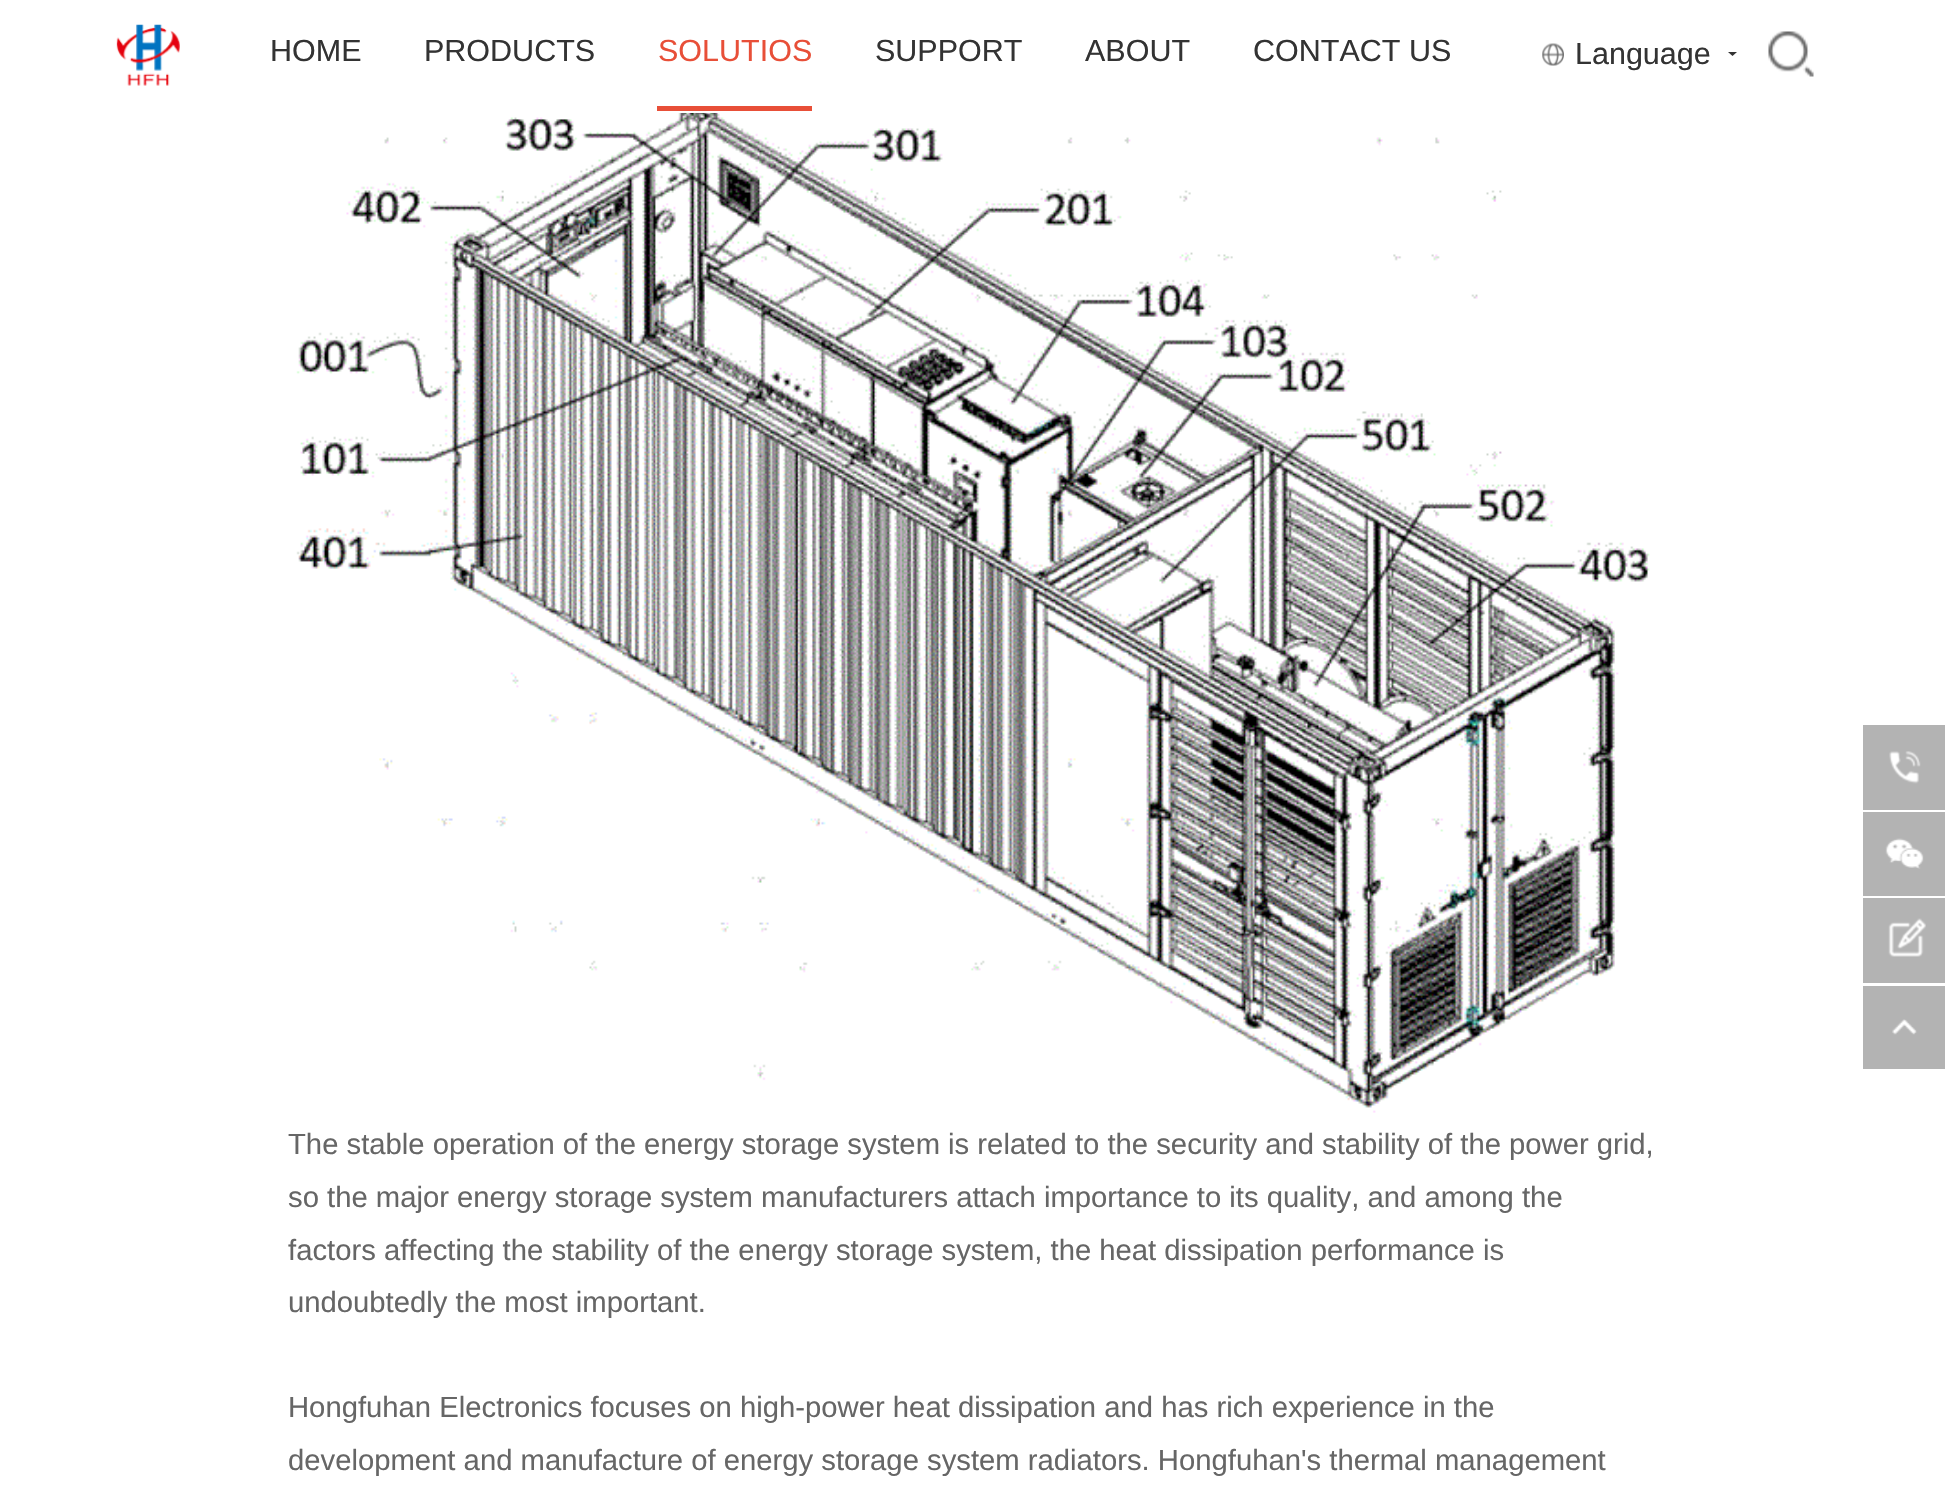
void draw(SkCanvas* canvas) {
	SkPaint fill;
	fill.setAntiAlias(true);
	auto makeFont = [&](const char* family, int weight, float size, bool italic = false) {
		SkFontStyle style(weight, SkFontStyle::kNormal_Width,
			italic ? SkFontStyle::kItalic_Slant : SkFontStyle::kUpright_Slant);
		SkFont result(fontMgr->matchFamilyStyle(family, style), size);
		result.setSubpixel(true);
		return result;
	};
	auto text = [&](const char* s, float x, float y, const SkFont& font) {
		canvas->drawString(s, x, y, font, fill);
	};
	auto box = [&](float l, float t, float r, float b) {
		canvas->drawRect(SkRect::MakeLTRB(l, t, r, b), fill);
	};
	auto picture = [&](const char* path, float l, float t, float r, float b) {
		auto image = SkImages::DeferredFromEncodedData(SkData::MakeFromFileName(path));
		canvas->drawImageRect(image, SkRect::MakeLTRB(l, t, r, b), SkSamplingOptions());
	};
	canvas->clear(0xFFFFFFFF);
	picture("image0.png", 116, 24, 180, 86);
	fill.setColor(0xFFE84F38);
	box(657, 106, 812, 111);
	picture("image1.png", 1542, 43, 1564, 66);
	fill.setColor(0xFF333333);
	canvas->drawPath(SkPathBuilder().moveTo(1728, 52).lineTo(1737, 52).lineTo(1732.5f, 56).close().detach(), fill);
	picture("image2.png", 1768, 31, 1814, 77);
	fill.setColor(0xFFB3B3B3);
	box(1863, 725, 1945, 810);
	picture("image3.png", 1889, 751, 1921, 784);
	box(1863, 812, 1945, 896);
	picture("image4.png", 1885, 838, 1924, 869);
	box(1863, 898, 1945, 983);
	picture("image5.png", 1888, 918, 1926, 957);
	box(1863, 986, 1945, 1069);
	picture("image6.png", 1892, 1019, 1917, 1035);
	picture("image7.png", 296, 113, 1650, 1113);
	auto font1 = makeFont("Liberation Sans", 400, 30.5f);
	fill.setColor(0xFF333333);
	text("HOME", 270, 61, font1);
	text("PRODUCTS", 424, 61, font1);
	fill.setColor(0xFFE84F38);
	text("SOLUTIOS", 658, 61, font1);
	fill.setColor(0xFF333333);
	text("SUPPORT", 875, 61, font1);
	text("ABOUT", 1085, 61, font1);
	text("CONTACT US", 1253, 61, font1);
	text("Language", 1575, 64, font1);
	auto font2 = makeFont("Liberation Sans", 400, 29.25f);
	fill.setColor(0xFF666666);
	text("The stable operation of the energy storage system is related to the security and stability of the power grid,", 288, 1154, font2);
	text("so the major energy storage system manufacturers attach importance to its quality, and among the", 288, 1207, font2);
	text("factors affecting the stability of the energy storage system, the heat dissipation performance is", 288, 1260, font2);
	text("undoubtedly the most important.", 288, 1312, font2);
	text("Hongfuhan Electronics focuses on high-power heat dissipation and has rich experience in the", 288, 1417, font2);
	text("development and manufacture of energy storage system radiators. Hongfuhan's thermal management", 288, 1470, font2);
}
